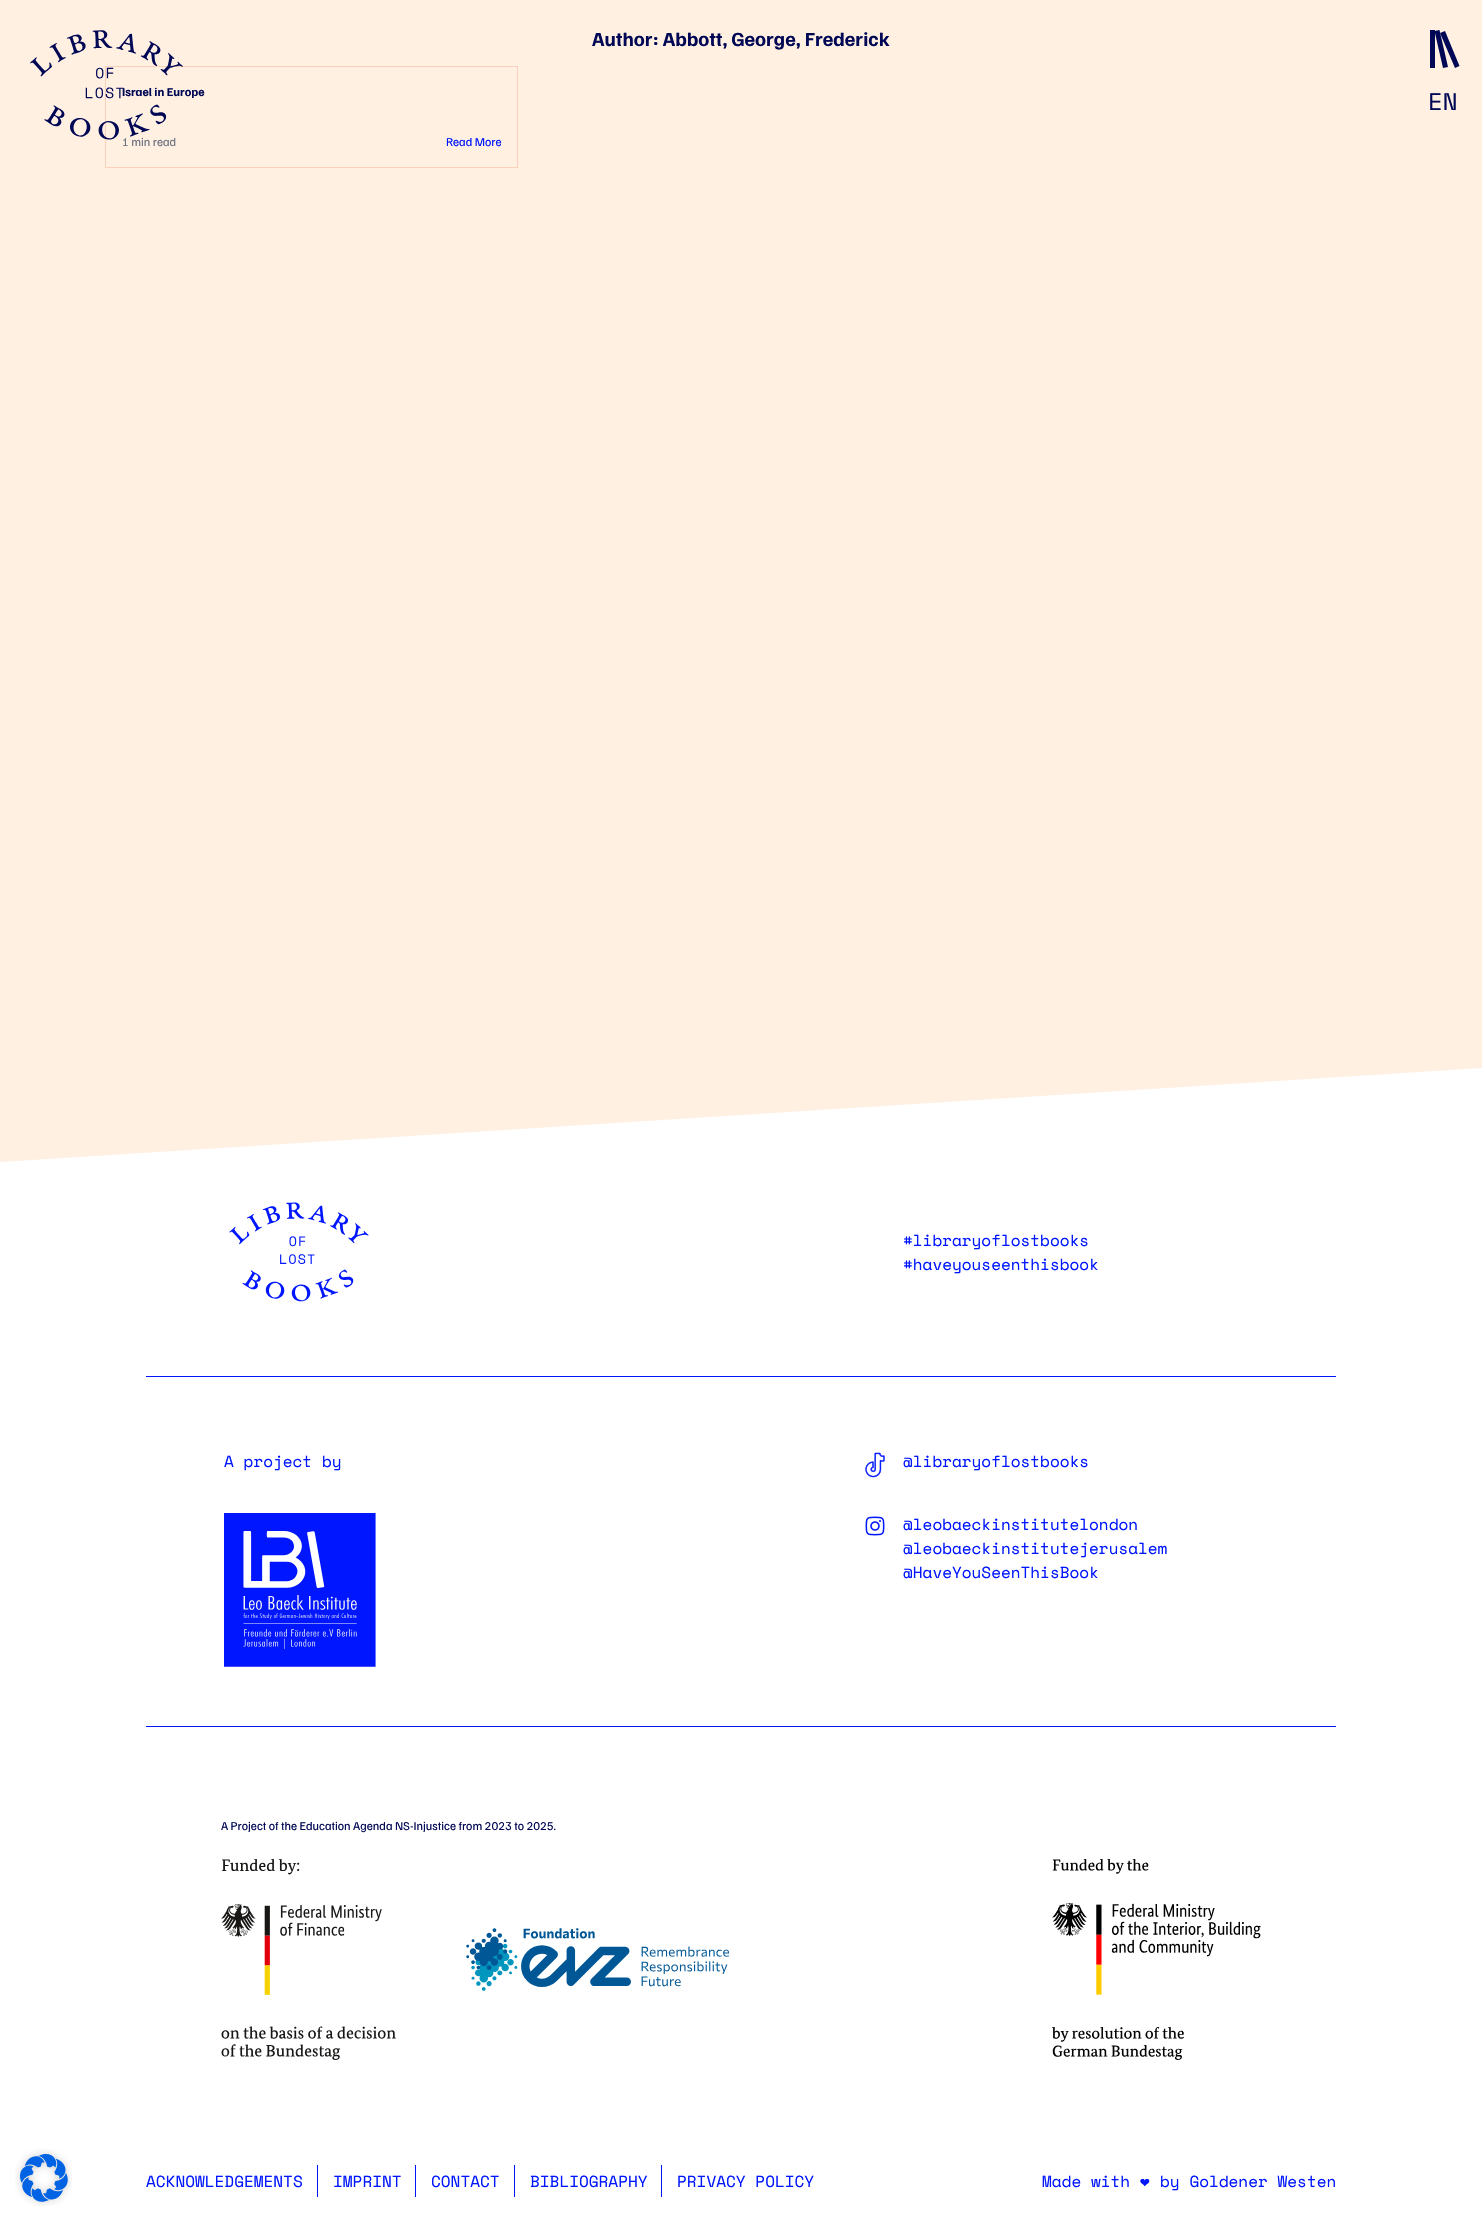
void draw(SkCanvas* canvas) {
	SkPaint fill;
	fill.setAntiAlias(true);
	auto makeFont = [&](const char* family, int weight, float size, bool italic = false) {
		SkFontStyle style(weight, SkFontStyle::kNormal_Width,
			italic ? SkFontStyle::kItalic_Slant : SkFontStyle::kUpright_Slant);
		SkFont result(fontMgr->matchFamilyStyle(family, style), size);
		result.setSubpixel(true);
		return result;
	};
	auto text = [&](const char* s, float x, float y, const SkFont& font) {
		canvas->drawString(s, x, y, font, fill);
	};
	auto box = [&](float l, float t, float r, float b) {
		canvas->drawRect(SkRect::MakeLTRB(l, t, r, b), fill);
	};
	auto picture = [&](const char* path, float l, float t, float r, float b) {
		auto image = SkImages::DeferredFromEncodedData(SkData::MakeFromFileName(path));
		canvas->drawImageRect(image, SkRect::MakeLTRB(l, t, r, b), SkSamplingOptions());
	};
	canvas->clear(0xFFFFF0E2);
	fill.setColor(0xFFFFFFFF);
	box(0, 1164, 1482, 2222);
	picture("image0.png", 15, 2149, 72, 2206);
	fill.setStyle(SkPaint::kStroke_Style);
	fill.setStrokeWidth(1);
	fill.setColor(0xFFFCD1BB);
	canvas->drawRect(SkRect::MakeLTRB(105.5f, 66.5f, 517.5f, 167.5f), fill);
	fill.setStyle(SkPaint::kFill_Style);
	fill.setColor(0xFF000754);
	box(1430, 30, 1435, 68);
	canvas->drawPath(SkPathBuilder().moveTo(1434.5f, 31).lineTo(1439.5f, 30).lineTo(1448, 67).lineTo(1443, 68).close().detach(), fill);
	canvas->drawPath(SkPathBuilder().moveTo(1440, 33).lineTo(1445, 31).lineTo(1459.5f, 66).lineTo(1455, 68).close().detach(), fill);
	fill.setColor(0xFFFFFFFF);
	canvas->drawPath(SkPathBuilder().moveTo(1482, 1068).lineTo(1482, 1164).lineTo(0, 1164).lineTo(0, 1162).close().detach(), fill);
	picture("image2.png", 229, 1202, 369, 1302);
	fill.setColor(0xFF0016FF);
	box(146, 1376, 1336, 1377);
	picture("image3.png", 224, 1513, 376, 1667);
	picture("image4.png", 865, 1452, 885, 1478);
	picture("image5.png", 865, 1516, 885, 1536);
	box(146, 1726, 1336, 1727);
	picture("image6.png", 221, 1859, 396, 2060);
	picture("image7.png", 466, 1928, 729, 1991);
	picture("image8.png", 1052, 1859, 1261, 2060);
	box(317, 2165, 318, 2197);
	box(415, 2165, 416, 2197);
	box(514, 2165, 515, 2197);
	box(661, 2165, 662, 2197);
	auto font1 = makeFont("Familjen Grotesk", 700, 20);
	fill.setColor(0xFF000754);
	text("Author: Abbott, George, Frederick", 592, 46, font1);
	auto font2 = makeFont("Familjen Grotesk", 700, 12);
	text("Israel in Europe", 122, 96, font2);
	auto font3 = makeFont("Familjen Grotesk", 400, 12);
	fill.setColor(0xFF6B7280);
	text("1 min read", 122, 146, font3);
	fill.setColor(0xFF0016FF);
	text("Read More", 446, 146, font3);
	picture("image1.png", 30, 30, 183, 140);
	auto font4 = makeFont("Space Mono", 400, 24);
	fill.setColor(0xFF000754);
	text("EN", 1428, 110, font4);
	auto font5 = makeFont("Space Mono", 400, 16);
	fill.setColor(0xFF0016FF);
	text("#libraryoflostbooks", 903, 1246, font5);
	text("#haveyouseenthisbook", 903, 1270, font5);
	text("A project by", 224, 1467, font5);
	text("@libraryoflostbooks", 903, 1467, font5);
	text("@leobaeckinstitutelondon", 903, 1530, font5);
	text("@leobaeckinstitutejerusalem", 903, 1554, font5);
	text("@HaveYouSeenThisBook", 903, 1578, font5);
	fill.setColor(0xFF000754);
	text("A Project of the Education Agenda NS-Injustice from 2023 to 2025.", 221, 1830, font3);
	fill.setColor(0xFF0016FF);
	text("ACKNOWLEDGEMENTS", 146, 2187, font5);
	text("IMPRINT", 333, 2187, font5);
	text("CONTACT", 431, 2187, font5);
	text("BIBLIOGRAPHY", 530, 2187, font5);
	text("PRIVACY POLICY", 677, 2187, font5);
	text("Made with", 1042, 2187, font5);
	auto font6 = makeFont("DejaVu Sans Mono", 400, 16);
	text("❤", 1140, 2187, font6);
	text("by Goldener Westen", 1160, 2187, font5);
}
